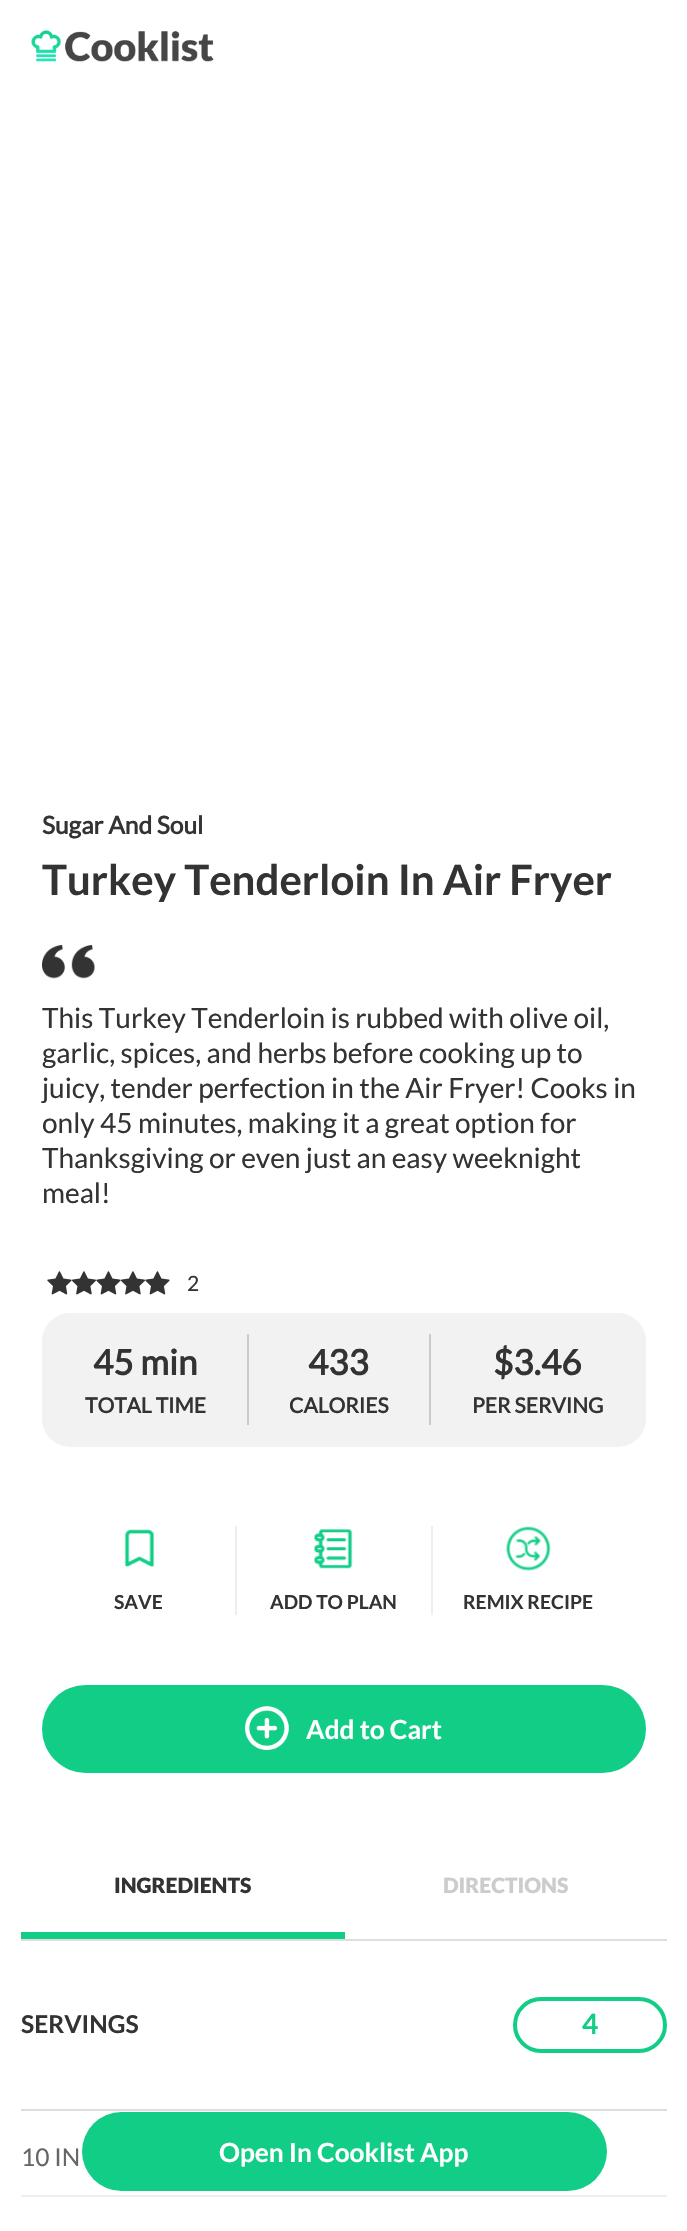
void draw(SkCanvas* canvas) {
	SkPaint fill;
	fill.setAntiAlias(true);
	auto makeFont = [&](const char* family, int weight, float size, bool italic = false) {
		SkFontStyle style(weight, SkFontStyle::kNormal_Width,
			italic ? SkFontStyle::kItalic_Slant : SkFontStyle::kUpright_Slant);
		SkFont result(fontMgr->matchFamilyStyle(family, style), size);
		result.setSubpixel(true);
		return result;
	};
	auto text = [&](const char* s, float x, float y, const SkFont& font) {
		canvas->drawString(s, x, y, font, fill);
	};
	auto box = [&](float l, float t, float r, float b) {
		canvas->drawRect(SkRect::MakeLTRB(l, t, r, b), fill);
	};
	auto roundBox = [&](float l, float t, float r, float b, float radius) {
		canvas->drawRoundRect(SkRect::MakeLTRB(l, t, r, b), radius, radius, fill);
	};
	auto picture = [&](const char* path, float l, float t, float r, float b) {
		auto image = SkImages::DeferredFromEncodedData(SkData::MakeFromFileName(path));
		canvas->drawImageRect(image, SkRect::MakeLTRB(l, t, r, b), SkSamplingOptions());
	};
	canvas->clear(0xFFFFFFFF);
	picture("image0.png", 31, 30, 214, 62);
	picture("image1.png", 42, 945, 95, 979);
	picture("image2.png", 47, 1271, 72, 1295);
	picture("image3.png", 71, 1271, 97, 1295);
	picture("image4.png", 96, 1271, 121, 1295);
	picture("image3.png", 120, 1271, 146, 1295);
	picture("image4.png", 145, 1271, 170, 1295);
	fill.setColor(0xFFF2F2F2);
	roundBox(42, 1313, 646, 1447, 28);
	fill.setColor(0xFFCBCBCB);
	box(247, 1334, 249, 1425);
	box(429, 1334, 431, 1425);
	picture("image5.png", 124, 1529, 155, 1568);
	fill.setColor(0xFFEEEEEE);
	box(235, 1526, 237, 1615);
	picture("image6.png", 314, 1529, 353, 1569);
	box(431, 1526, 433, 1615);
	picture("image7.png", 506, 1526, 551, 1572);
	fill.setColor(0xFF11CD86);
	roundBox(42, 1685, 646, 1773, 44);
	picture("image8.png", 245, 1706, 289, 1750);
	box(21, 1932, 345, 1939);
	fill.setColor(0xFFDEDEDE);
	box(21, 1939, 667, 1941);
	box(21, 2109, 667, 2111);
	fill.setStyle(SkPaint::kStroke_Style);
	fill.setStrokeWidth(4);
	fill.setColor(0xFF11CD86);
	canvas->drawRoundRect(SkRect::MakeLTRB(515, 1999, 665, 2051), 26, 26, fill);
	fill.setStyle(SkPaint::kFill_Style);
	fill.setColor(0xFFEEEEEE);
	box(21, 2195, 667, 2197);
	fill.setColor(0xFF11CD86);
	roundBox(82, 2112, 607, 2191, 39.5f);
	auto font1 = makeFont("Lato", 700, 24.5f);
	fill.setColor(0xFF333333);
	text("Sugar And Soul", 42, 834, font1);
	auto font2 = makeFont("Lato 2", 700, 42);
	text("Turkey Tenderloin In Air Fryer", 42, 895, font2);
	auto font3 = makeFont("Lato", 400, 28);
	text("This Turkey Tenderloin is rubbed with olive oil,", 42, 1028, font3);
	text("garlic, spices, and herbs before cooking up to", 42, 1063, font3);
	text("juicy, tender perfection in the Air Fryer! Cooks in", 42, 1098, font3);
	text("only 45 minutes, making it a great option for", 42, 1133, font3);
	text("Thanksgiving or even just an easy weeknight", 42, 1168, font3);
	text("meal!", 42, 1203, font3);
	auto font4 = makeFont("Lato", 400, 21);
	text("2", 187, 1291, font4);
	auto font5 = makeFont("Lato", 700, 35);
	text("45 min", 93, 1375, font5);
	auto font6 = makeFont("Lato", 700, 21);
	text("TOTAL TIME", 85, 1413, font6);
	text("433", 308, 1375, font5);
	text("CALORIES", 289, 1413, font6);
	text("$3.46", 493, 1375, font5);
	text("PER SERVING", 472, 1413, font6);
	auto font7 = makeFont("Lato 2", 700, 19.25f);
	text("SAVE", 114, 1609, font7);
	text("ADD TO PLAN", 270, 1609, font7);
	text("REMIX RECIPE", 463, 1609, font7);
	auto font8 = makeFont("Lato 2", 700, 26.25f);
	fill.setColor(0xFFFFFFFF);
	text("Add to Cart", 306, 1739, font8);
	auto font9 = makeFont("Lato", 900, 21);
	fill.setColor(0xFF333333);
	text("INGREDIENTS", 114, 1893, font9);
	fill.setColor(0xFFCCCCCC);
	text("DIRECTIONS", 443, 1893, font9);
	auto font10 = makeFont("Lato 2", 700, 24.5f);
	fill.setColor(0xFF333333);
	text("SERVINGS", 21, 2033, font10);
	auto font11 = makeFont("Lato 2", 700, 28);
	fill.setColor(0xFF11CD86);
	text("4", 582, 2034, font11);
	auto font12 = makeFont("Lato", 400, 24.5f);
	fill.setColor(0xFF666666);
	text("10 IN", 21, 2166, font12);
	fill.setColor(0xFFFFFFFF);
	text("Open In Cooklist App", 219, 2162, font8);
}
